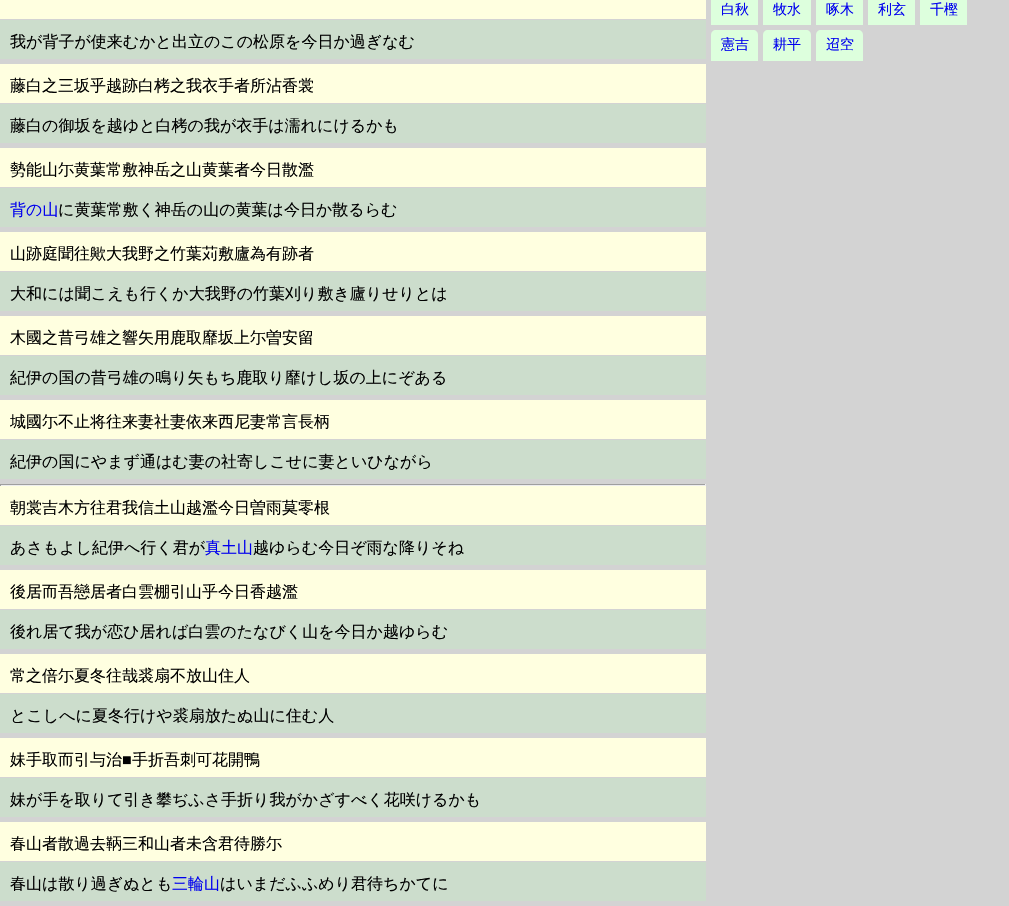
void draw(SkCanvas* canvas) {
	SkPaint fill;
	fill.setAntiAlias(true);
	auto makeFont = [&](const char* family, int weight, float size, bool italic = false) {
		SkFontStyle style(weight, SkFontStyle::kNormal_Width,
			italic ? SkFontStyle::kItalic_Slant : SkFontStyle::kUpright_Slant);
		SkFont result(fontMgr->matchFamilyStyle(family, style), size);
		result.setSubpixel(true);
		return result;
	};
	auto text = [&](const char* s, float x, float y, const SkFont& font) {
		canvas->drawString(s, x, y, font, fill);
	};
	auto box = [&](float l, float t, float r, float b) {
		canvas->drawRect(SkRect::MakeLTRB(l, t, r, b), fill);
	};
	canvas->clear(0xFFD3D3D3);
	fill.setColor(0xFFDDFFDD);
	box(711, 0, 758, 25);
	box(763, 0, 811, 25);
	box(816, 0, 863, 25);
	box(868, 0, 915, 25);
	box(920, 0, 967, 25);
	canvas->drawPath(SkPathBuilder().moveTo(716, 30).lineTo(753, 30).cubicTo(756, 30, 758, 32, 758, 35).lineTo(758, 61).lineTo(711, 61).lineTo(711, 35).cubicTo(711, 32, 713, 30, 716, 30).close().detach(), fill);
	canvas->drawPath(SkPathBuilder().moveTo(768, 30).lineTo(806, 30).cubicTo(809, 30, 811, 32, 811, 35).lineTo(811, 61).lineTo(763, 61).lineTo(763, 35).cubicTo(763, 32, 765, 30, 768, 30).close().detach(), fill);
	canvas->drawPath(SkPathBuilder().moveTo(821, 30).lineTo(858, 30).cubicTo(861, 30, 863, 32, 863, 35).lineTo(863, 61).lineTo(816, 61).lineTo(816, 35).cubicTo(816, 32, 818, 30, 821, 30).close().detach(), fill);
	fill.setColor(0xFFFFFFE0);
	box(0, 0, 706, 19);
	fill.setColor(0xFFCCDDCC);
	box(0, 20, 706, 59);
	fill.setColor(0xFFFFFFE0);
	box(0, 64, 706, 103);
	fill.setColor(0xFFCCDDCC);
	box(0, 104, 706, 143);
	fill.setColor(0xFFFFFFE0);
	box(0, 148, 706, 187);
	fill.setColor(0xFFCCDDCC);
	box(0, 188, 706, 227);
	fill.setColor(0xFFFFFFE0);
	box(0, 232, 706, 271);
	fill.setColor(0xFFCCDDCC);
	box(0, 272, 706, 311);
	fill.setColor(0xFFFFFFE0);
	box(0, 316, 706, 355);
	fill.setColor(0xFFCCDDCC);
	box(0, 356, 706, 395);
	fill.setColor(0xFFFFFFE0);
	box(0, 400, 706, 439);
	fill.setColor(0xFFCCDDCC);
	box(0, 440, 706, 479);
	fill.setColor(0xFF9F9F9F);
	box(0, 484, 706, 485);
	fill.setColor(0xFFEEEEEE);
	box(705, 484, 706, 486);
	box(0, 485, 706, 486);
	fill.setColor(0xFF9F9F9F);
	box(0, 484, 1, 486);
	fill.setColor(0xFFFFFFE0);
	box(0, 486, 706, 525);
	fill.setColor(0xFFCCDDCC);
	box(0, 526, 706, 565);
	fill.setColor(0xFFFFFFE0);
	box(0, 570, 706, 609);
	fill.setColor(0xFFCCDDCC);
	box(0, 610, 706, 649);
	fill.setColor(0xFFFFFFE0);
	box(0, 654, 706, 693);
	fill.setColor(0xFFCCDDCC);
	box(0, 694, 706, 733);
	fill.setColor(0xFFFFFFE0);
	box(0, 738, 706, 777);
	fill.setColor(0xFFCCDDCC);
	box(0, 778, 706, 817);
	fill.setColor(0xFFFFFFE0);
	box(0, 822, 706, 861);
	fill.setColor(0xFFCCDDCC);
	box(0, 862, 706, 901);
	auto font1 = makeFont("WenQuanYi Zen Hei", 500, 14);
	fill.setColor(0xFF0000EE);
	text("白秋", 721, 14, font1);
	text("牧水", 773, 14, font1);
	text("啄木", 826, 14, font1);
	text("利玄", 878, 14, font1);
	text("千樫", 930, 14, font1);
	text("憲吉", 721, 49, font1);
	text("耕平", 773, 49, font1);
	text("迢空", 826, 49, font1);
	auto font2 = makeFont("WenQuanYi Zen Hei", 500, 16);
	fill.setColor(0xFF000000);
	text("我が背子が使来むかと出立のこの松原を今日か過ぎなむ", 10, 47, font2);
	text("藤白之三坂乎越跡白栲之我衣手者所沾香裳", 10, 91, font2);
	text("藤白の御坂を越ゆと白栲の我が衣手は濡れにけるかも", 10, 131, font2);
	text("勢能山尓黄葉常敷神岳之山黄葉者今日散濫", 10, 175, font2);
	fill.setColor(0xFF0000EE);
	text("背の山", 10, 215, font2);
	fill.setColor(0xFF000000);
	text("に黄葉常敷く神岳の山の黄葉は今日か散るらむ", 58, 215, font2);
	text("山跡庭聞往歟大我野之竹葉苅敷廬為有跡者", 10, 259, font2);
	text("大和には聞こえも行くか大我野の竹葉刈り敷き廬りせりとは", 10, 299, font2);
	text("木國之昔弓雄之響矢用鹿取靡坂上尓曽安留", 10, 343, font2);
	text("紀伊の国の昔弓雄の鳴り矢もち鹿取り靡けし坂の上にぞある", 10, 383, font2);
	text("城國尓不止将往来妻社妻依来西尼妻常言長柄", 10, 427, font2);
	text("紀伊の国にやまず通はむ妻の社寄しこせに妻といひながら", 10, 467, font2);
	text("朝裳吉木方往君我信土山越濫今日曽雨莫零根", 10, 513, font2);
	text("あさもよし紀伊へ行く君が", 10, 553, font2);
	fill.setColor(0xFF0000EE);
	text("真土山", 205, 553, font2);
	fill.setColor(0xFF000000);
	text("越ゆらむ今日ぞ雨な降りそね", 253, 553, font2);
	text("後居而吾戀居者白雲棚引山乎今日香越濫", 10, 597, font2);
	text("後れ居て我が恋ひ居れば白雲のたなびく山を今日か越ゆらむ", 10, 637, font2);
	text("常之倍尓夏冬往哉裘扇不放山住人", 10, 681, font2);
	text("とこしへに夏冬行けや裘扇放たぬ山に住む人", 10, 721, font2);
	text("妹手取而引与治", 10, 765, font2);
	auto font3 = makeFont("Liberation Serif", 400, 16);
	text("■", 122, 765, font3);
	text("手折吾刺可花開鴨", 132, 765, font2);
	text("妹が手を取りて引き攀ぢふさ手折り我がかざすべく花咲けるかも", 10, 805, font2);
	text("春山者散過去鞆三和山者未含君待勝尓", 10, 849, font2);
	text("春山は散り過ぎぬとも", 10, 889, font2);
	fill.setColor(0xFF0000EE);
	text("三輪山", 172, 889, font2);
	fill.setColor(0xFF000000);
	text("はいまだふふめり君待ちかてに", 220, 889, font2);
}
